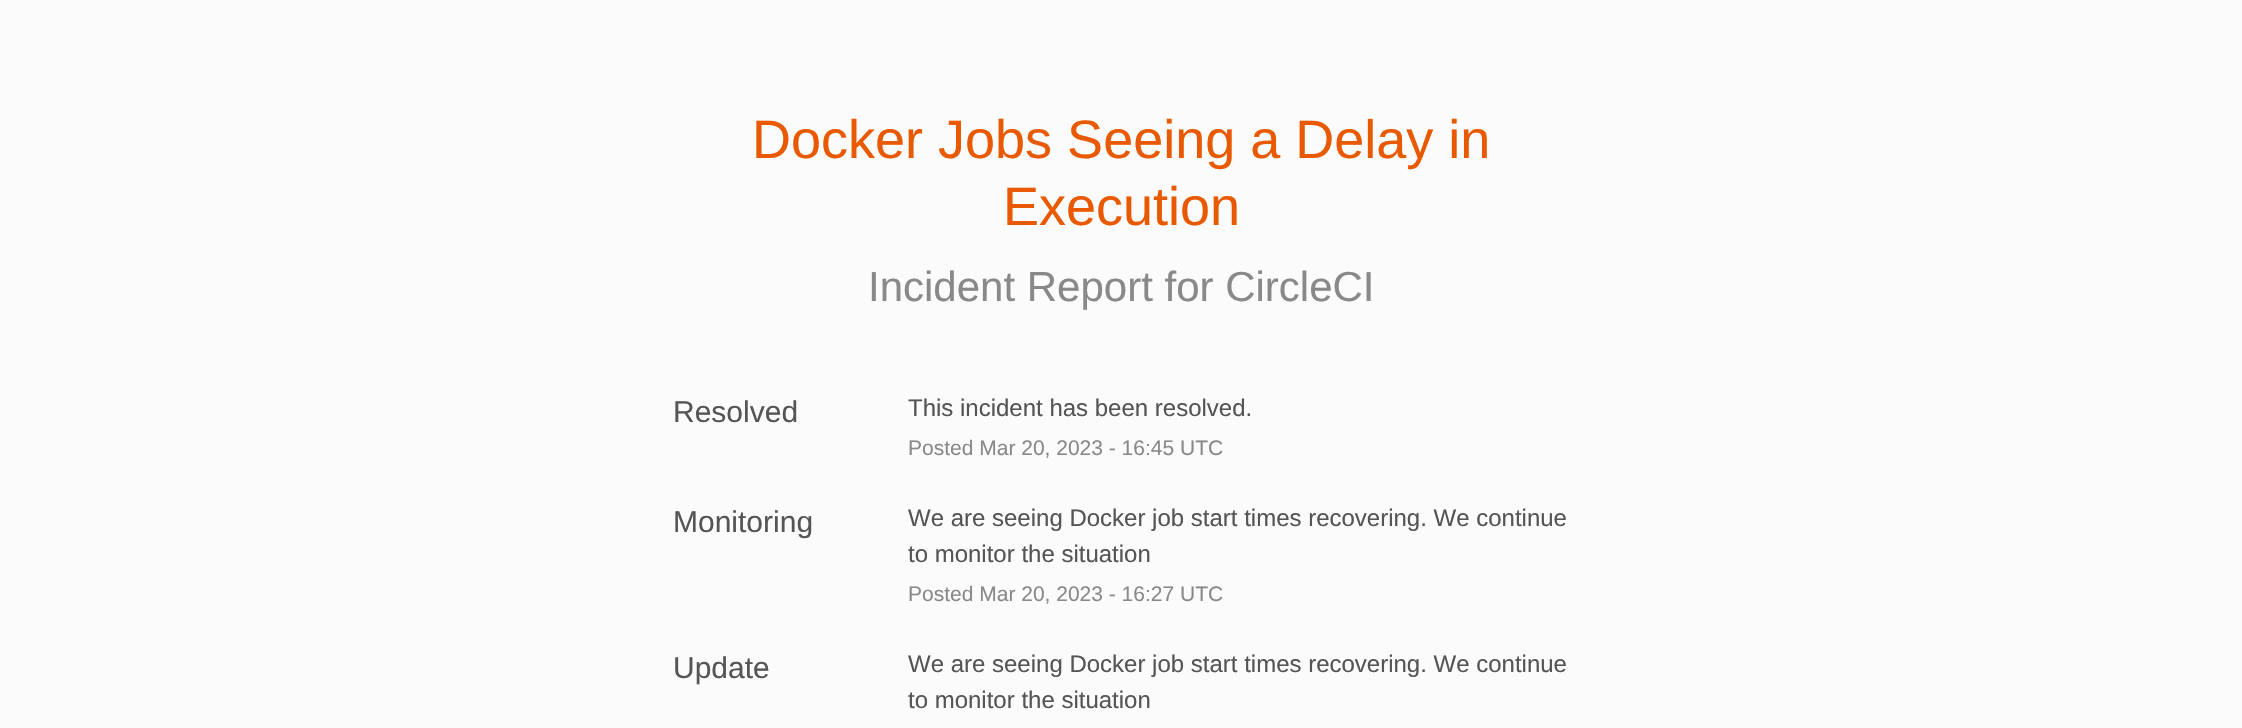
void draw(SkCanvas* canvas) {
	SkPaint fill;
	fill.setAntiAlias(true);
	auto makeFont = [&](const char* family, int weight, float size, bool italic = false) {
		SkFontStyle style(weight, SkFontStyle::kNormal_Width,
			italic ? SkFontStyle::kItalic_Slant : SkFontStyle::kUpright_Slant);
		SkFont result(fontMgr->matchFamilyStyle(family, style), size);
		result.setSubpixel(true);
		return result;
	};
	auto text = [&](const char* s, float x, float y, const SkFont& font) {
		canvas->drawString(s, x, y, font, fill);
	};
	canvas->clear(0xFFFBFBFB);
	auto font1 = makeFont("Liberation Sans", 400, 54);
	fill.setColor(0xFFE95900);
	text("Docker Jobs Seeing a Delay in", 752, 158, font1);
	text("Execution", 1003, 225, font1);
	auto font2 = makeFont("Liberation Sans", 400, 42);
	fill.setColor(0xFF898989);
	text("Incident Report for CircleCI", 868, 301, font2);
	auto font3 = makeFont("Liberation Sans", 400, 30);
	fill.setColor(0xFF555555);
	text("Resolved", 673, 422, font3);
	auto font4 = makeFont("Liberation Sans", 400, 24);
	text("This incident has been resolved.", 908, 416, font4);
	auto font5 = makeFont("Liberation Sans", 400, 21);
	fill.setColor(0xFF898989);
	text("Posted Mar 20, 2023 - 16:45 UTC", 908, 455, font5);
	fill.setColor(0xFF555555);
	text("Monitoring", 673, 532, font3);
	text("We are seeing Docker job start times recovering. We continue", 908, 526, font4);
	text("to monitor the situation", 908, 562, font4);
	fill.setColor(0xFF898989);
	text("Posted Mar 20, 2023 - 16:27 UTC", 908, 601, font5);
	fill.setColor(0xFF555555);
	text("Update", 673, 678, font3);
	text("We are seeing Docker job start times recovering. We continue", 908, 672, font4);
	text("to monitor the situation", 908, 708, font4);
}
